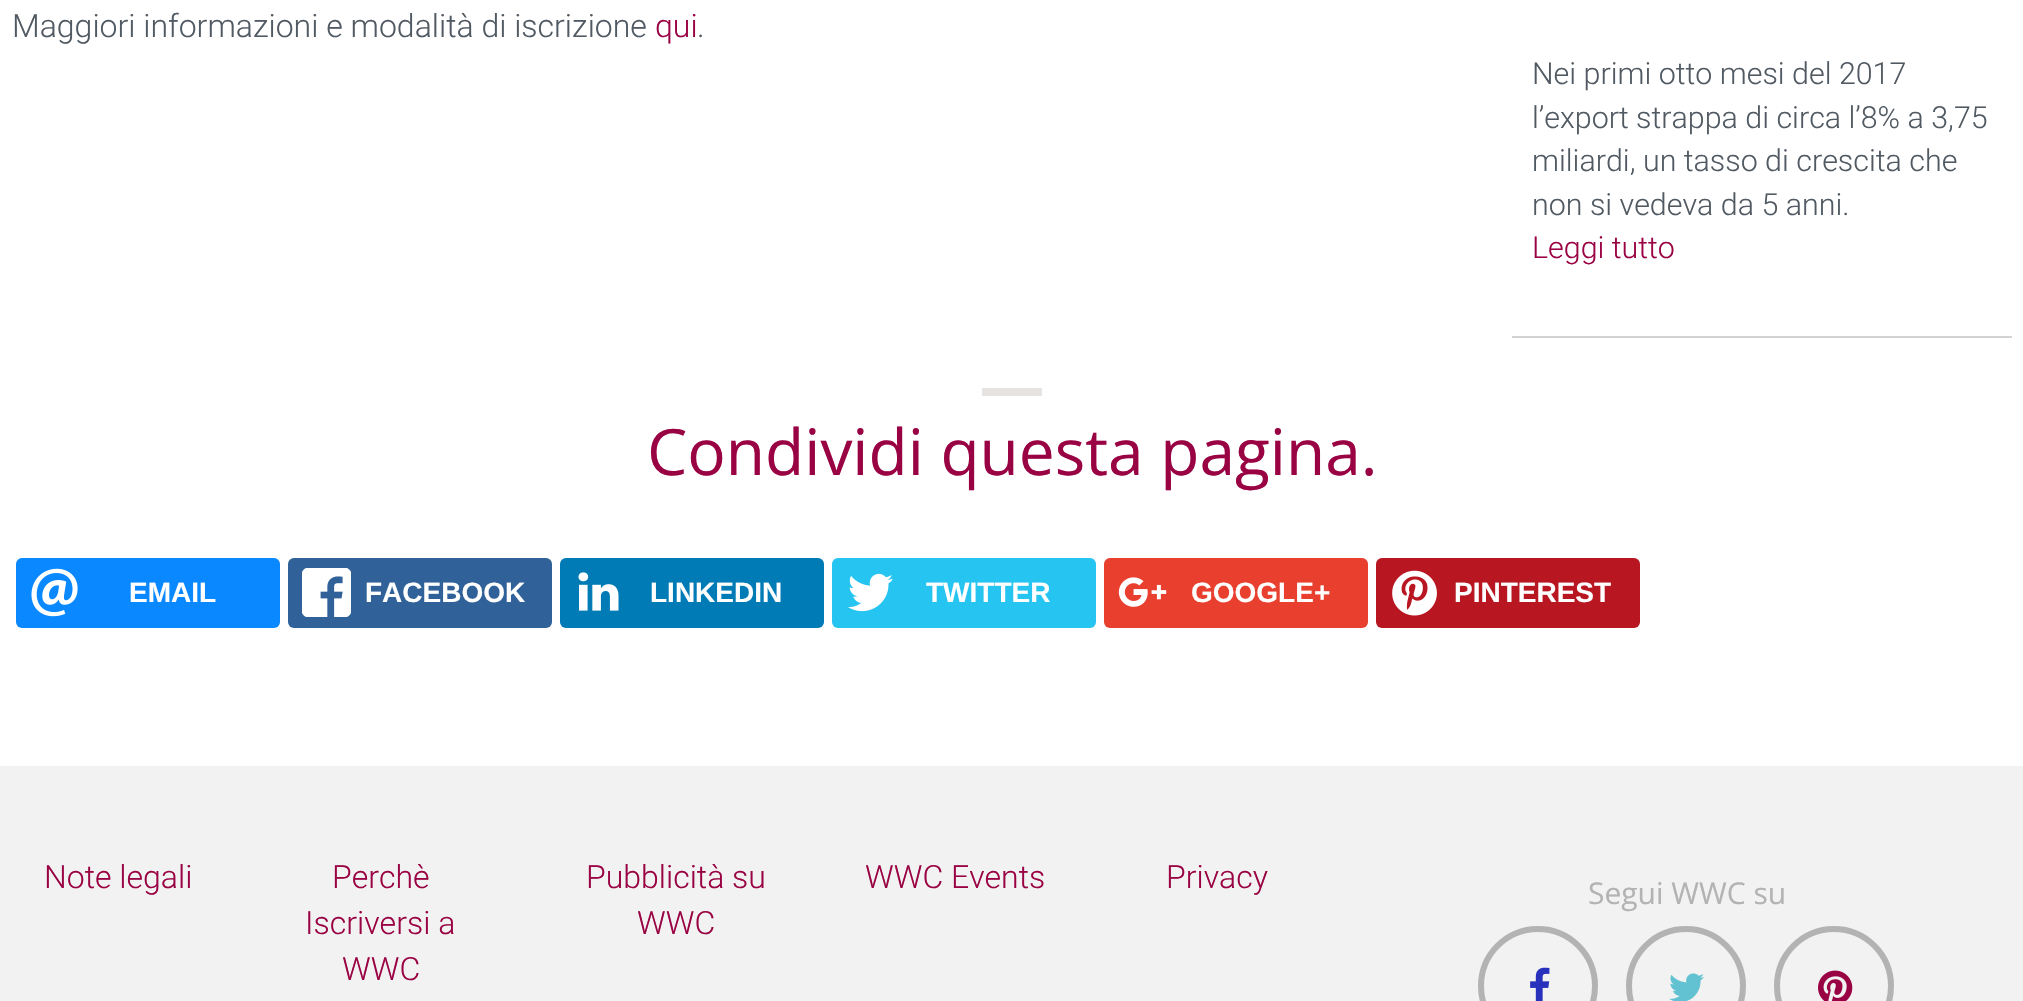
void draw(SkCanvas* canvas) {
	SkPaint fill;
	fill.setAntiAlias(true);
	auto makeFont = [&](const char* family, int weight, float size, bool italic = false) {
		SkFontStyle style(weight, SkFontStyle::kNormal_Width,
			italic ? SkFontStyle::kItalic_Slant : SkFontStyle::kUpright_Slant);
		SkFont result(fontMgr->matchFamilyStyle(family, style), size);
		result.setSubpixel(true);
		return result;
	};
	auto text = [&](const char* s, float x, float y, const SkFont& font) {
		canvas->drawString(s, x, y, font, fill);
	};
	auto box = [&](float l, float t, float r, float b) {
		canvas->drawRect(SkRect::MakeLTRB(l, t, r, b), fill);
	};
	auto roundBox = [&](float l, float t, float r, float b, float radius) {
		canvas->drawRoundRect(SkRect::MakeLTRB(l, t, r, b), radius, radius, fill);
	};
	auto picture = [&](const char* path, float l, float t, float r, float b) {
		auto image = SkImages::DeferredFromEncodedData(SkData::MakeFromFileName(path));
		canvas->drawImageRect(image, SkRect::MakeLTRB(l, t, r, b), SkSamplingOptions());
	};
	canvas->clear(0xFFFFFFFF);
	fill.setColor(0xFFD3D3D3);
	box(1512, 336, 2012, 338);
	fill.setColor(0xFFE7E3E0);
	box(982, 388, 1042, 396);
	fill.setColor(0xFF0A88FF);
	roundBox(16, 558, 280, 628, 6);
	picture("image0.png", 31, 568, 78, 617);
	fill.setColor(0xFF306199);
	roundBox(288, 558, 552, 628, 6);
	picture("image1.png", 302, 568, 351, 617);
	fill.setColor(0xFF007BB6);
	roundBox(560, 558, 824, 628, 6);
	picture("image2.png", 578, 572, 619, 611);
	fill.setColor(0xFF26C4F1);
	roundBox(832, 558, 1096, 628, 6);
	picture("image3.png", 848, 573, 893, 612);
	fill.setColor(0xFFE93F2E);
	roundBox(1104, 558, 1368, 628, 6);
	picture("image4.png", 1118, 577, 1167, 607);
	fill.setColor(0xFFB81621);
	roundBox(1376, 558, 1640, 628, 6);
	picture("image5.png", 1392, 570, 1437, 616);
	fill.setColor(0xFFF2F2F2);
	box(0, 766, 2023, 1001);
	fill.setStyle(SkPaint::kStroke_Style);
	fill.setStrokeWidth(6);
	fill.setColor(0xFFB3B3B3);
	canvas->drawCircle(1538, 986, 57, fill);
	picture("image6.png", 1530, 967, 1550, 1001);
	canvas->drawCircle(1686, 986, 57, fill);
	picture("image7.png", 1669, 973, 1704, 1001);
	canvas->drawCircle(1834, 986, 57, fill);
	picture("image8.png", 1818, 970, 1853, 1001);
	auto font1 = makeFont("Roboto", 300, 32);
	fill.setStyle(SkPaint::kFill_Style);
	fill.setColor(0xFF515A62);
	text("Maggiori informazioni e modalità di iscrizione", 12, 37, font1);
	fill.setColor(0xFF9A0343);
	text("qui", 655, 37, font1);
	fill.setColor(0xFF515A62);
	text(".", 697, 37, font1);
	auto font2 = makeFont("Roboto", 300, 30.4f);
	text("Nei primi otto mesi del 2017", 1532, 84, font2);
	text("l’export strappa di circa l’8% a 3,75", 1532, 128, font2);
	text("miliardi, un tasso di crescita che", 1532, 171, font2);
	text("non si vedeva da 5 anni.", 1532, 215, font2);
	fill.setColor(0xFF9A0343);
	text("Leggi tutto", 1532, 258, font2);
	auto font3 = makeFont("Open Sans", 400, 64);
	text("Condividi questa pagina.", 647, 475, font3);
	auto font4 = makeFont("Liberation Sans", 700, 28);
	fill.setColor(0xFFFFFFFF);
	text("EMAIL", 129, 602, font4);
	text("FACEBOOK", 365, 602, font4);
	text("LINKEDIN", 650, 602, font4);
	text("TWITTER", 926, 602, font4);
	text("GOOGLE+", 1191, 602, font4);
	text("PINTEREST", 1454, 602, font4);
	fill.setColor(0xFF9A0343);
	text("Note legali", 44, 888, font1);
	text("Perchè", 332, 888, font1);
	text("Iscriversi a", 305, 934, font1);
	text("WWC", 342, 980, font1);
	text("Pubblicità su", 586, 888, font1);
	text("WWC", 637, 934, font1);
	text("WWC Events", 865, 888, font1);
	text("Privacy", 1166, 888, font1);
	auto font5 = makeFont("Open Sans", 400, 30);
	fill.setColor(0xFFB3B3B3);
	text("Segui WWC su", 1588, 904, font5);
}
